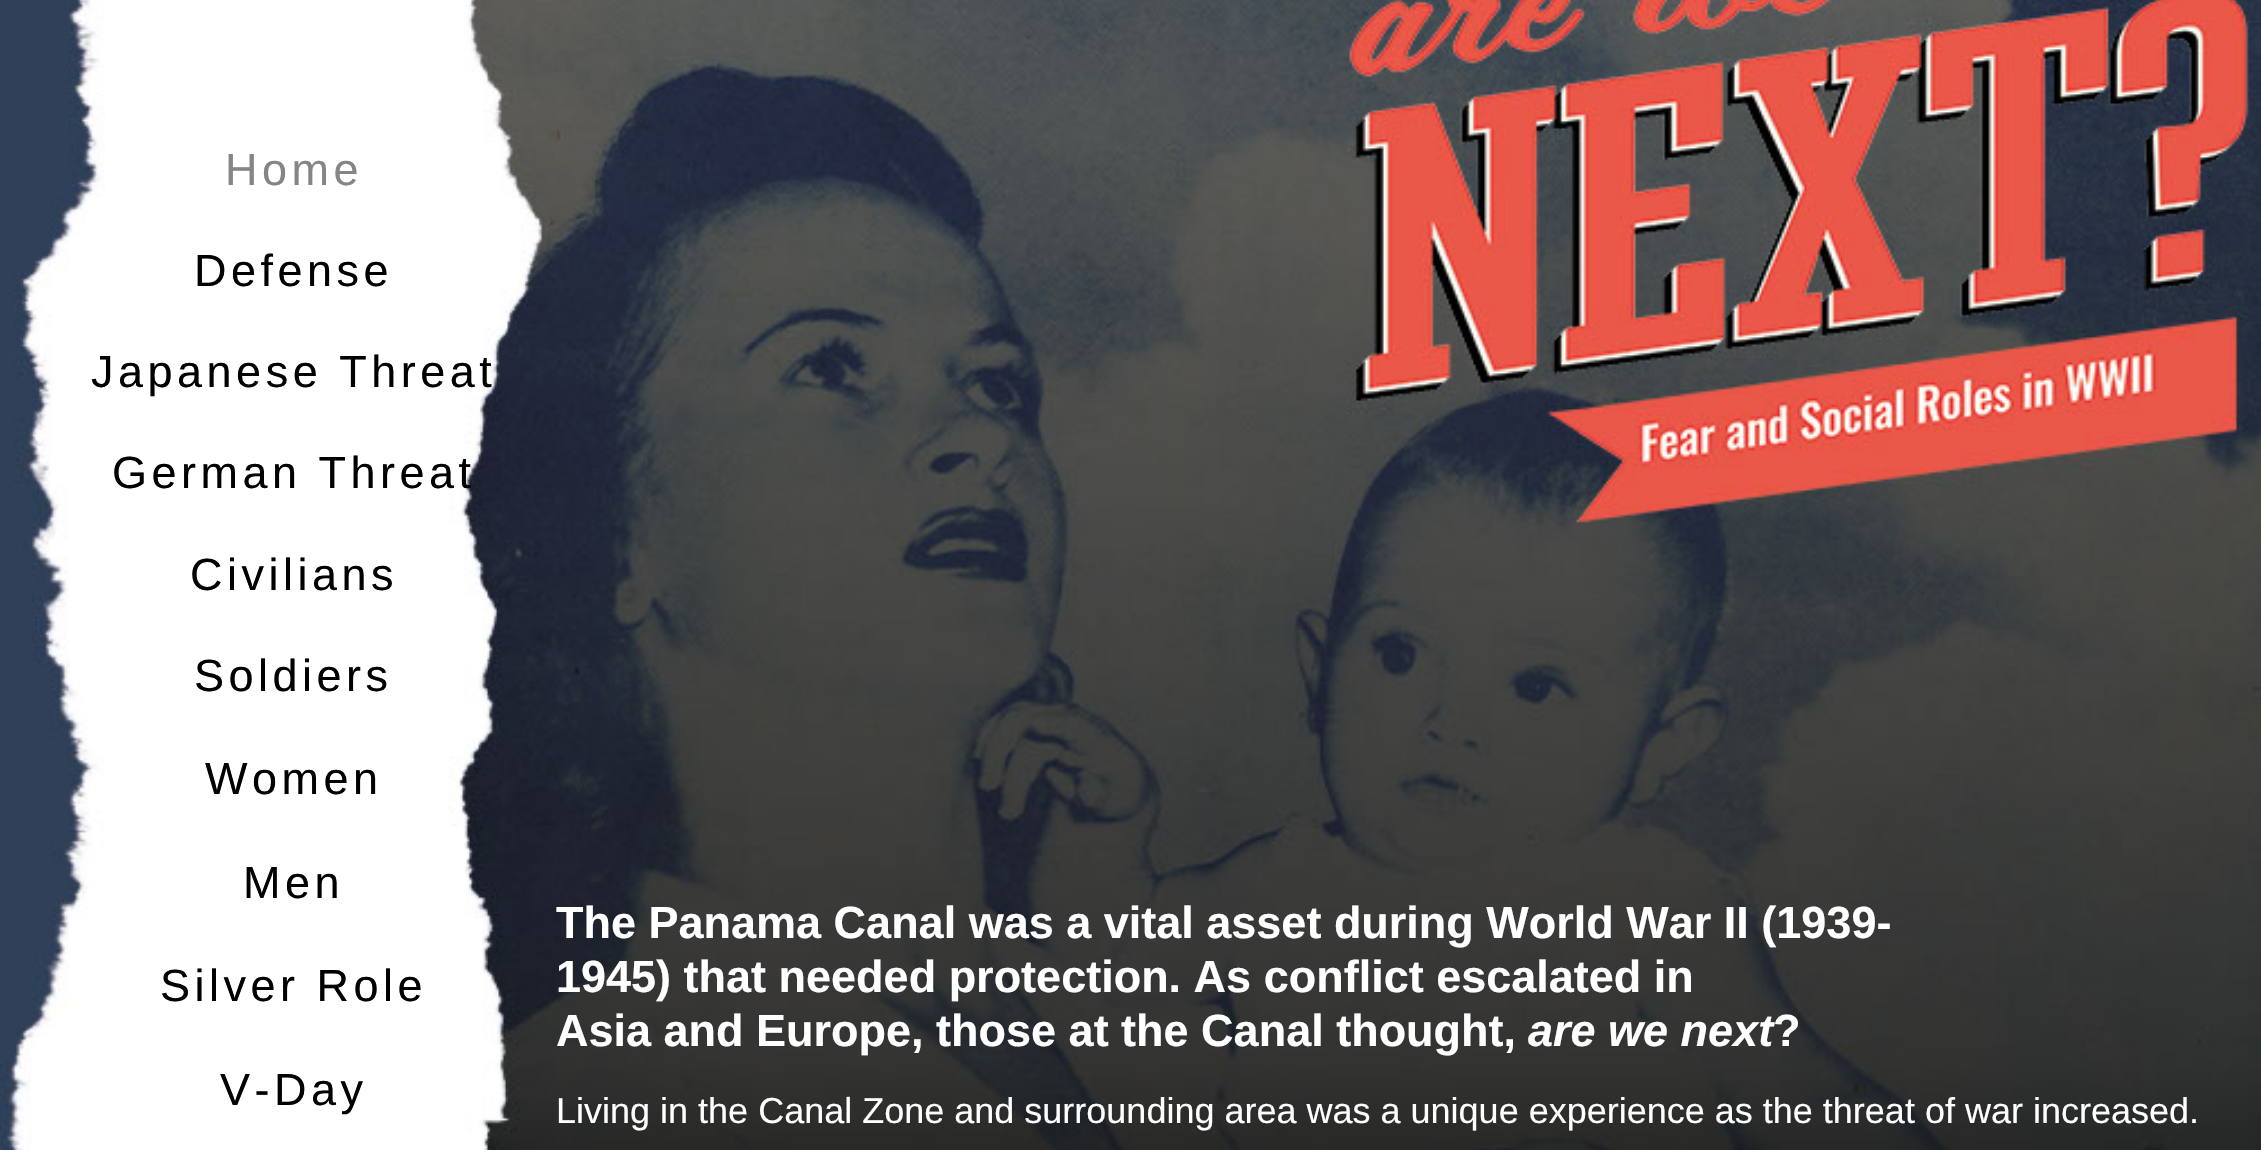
void draw(SkCanvas* canvas) {
	SkPaint fill;
	fill.setAntiAlias(true);
	auto makeFont = [&](const char* family, int weight, float size, bool italic = false) {
		SkFontStyle style(weight, SkFontStyle::kNormal_Width,
			italic ? SkFontStyle::kItalic_Slant : SkFontStyle::kUpright_Slant);
		SkFont result(fontMgr->matchFamilyStyle(family, style), size);
		result.setSubpixel(true);
		return result;
	};
	auto text = [&](const char* s, float x, float y, const SkFont& font) {
		canvas->drawString(s, x, y, font, fill);
	};
	auto spacedText = [&](const char* s, float x, float y, const SkFont& font, const SkPaint& ink, float letter, float word) {
		std::vector<SkGlyphID> glyphs(font.countText(s, strlen(s), SkTextEncoding::kUTF8));
		std::vector<float> xs(glyphs.size());
		font.textToGlyphs(s, strlen(s), SkTextEncoding::kUTF8, glyphs);
		font.getXPos(glyphs, xs, x);
		float extra = 0;
		for (size_t i = 0; i < glyphs.size(); i++) {
			xs[i] += extra;
			extra += letter + word * (glyphs[i] == font.unicharToGlyph(' '));
		}
		canvas->drawTextBlob(SkTextBlob::MakeFromPosHGlyphs(glyphs, xs, y, font), 0, 0, ink);
	};
	auto picture = [&](const char* path, float l, float t, float r, float b) {
		auto image = SkImages::DeferredFromEncodedData(SkData::MakeFromFileName(path));
		canvas->drawImageRect(image, SkRect::MakeLTRB(l, t, r, b), SkSamplingOptions());
	};
	canvas->clear(0xFFFFFFFF);
	picture("image0.png", 0, 0, 2261, 1150);
	auto font1 = makeFont("Liberation Sans", 400, 45);
	fill.setColor(0xFF858585);
	spacedText("Home", 225, 185, font1, fill, 4.5f, 0);
	fill.setColor(0xFF000000);
	spacedText("Defense", 194, 286, font1, fill, 4.5f, 0);
	spacedText("Japanese Threat", 91, 387, font1, fill, 4.5f, 0);
	spacedText("German Threat", 112, 488, font1, fill, 4.5f, 0);
	spacedText("Civilians", 190, 590, font1, fill, 4.5f, 0);
	spacedText("Soldiers", 194, 691, font1, fill, 4.5f, 0);
	spacedText("Women", 205, 794, font1, fill, 4.5f, 0);
	spacedText("Men", 243, 898, font1, fill, 4.5f, 0);
	spacedText("Silver Role", 160, 1001, font1, fill, 4.5f, 0);
	spacedText("V-Day", 220, 1105, font1, fill, 4.5f, 0);
	auto font2 = makeFont("Liberation Sans", 700, 45);
	fill.setColor(0xFFFFFFFF);
	text("The Panama Canal was a vital asset during World War II (1939-", 556, 938, font2);
	text("1945) that needed protection. As conflict escalated in", 556, 992, font2);
	text("Asia and Europe, those at the Canal thought,", 556, 1046, font2);
	auto font3 = makeFont("Liberation Sans", 700, 45, true);
	text("are we next", 1528, 1046, font3);
	text("?", 1773, 1046, font2);
	auto font4 = makeFont("Liberation Sans", 400, 36);
	text("Living in the Canal Zone and surrounding area was a unique experience as the threat of war increased.", 556, 1123, font4);
}
